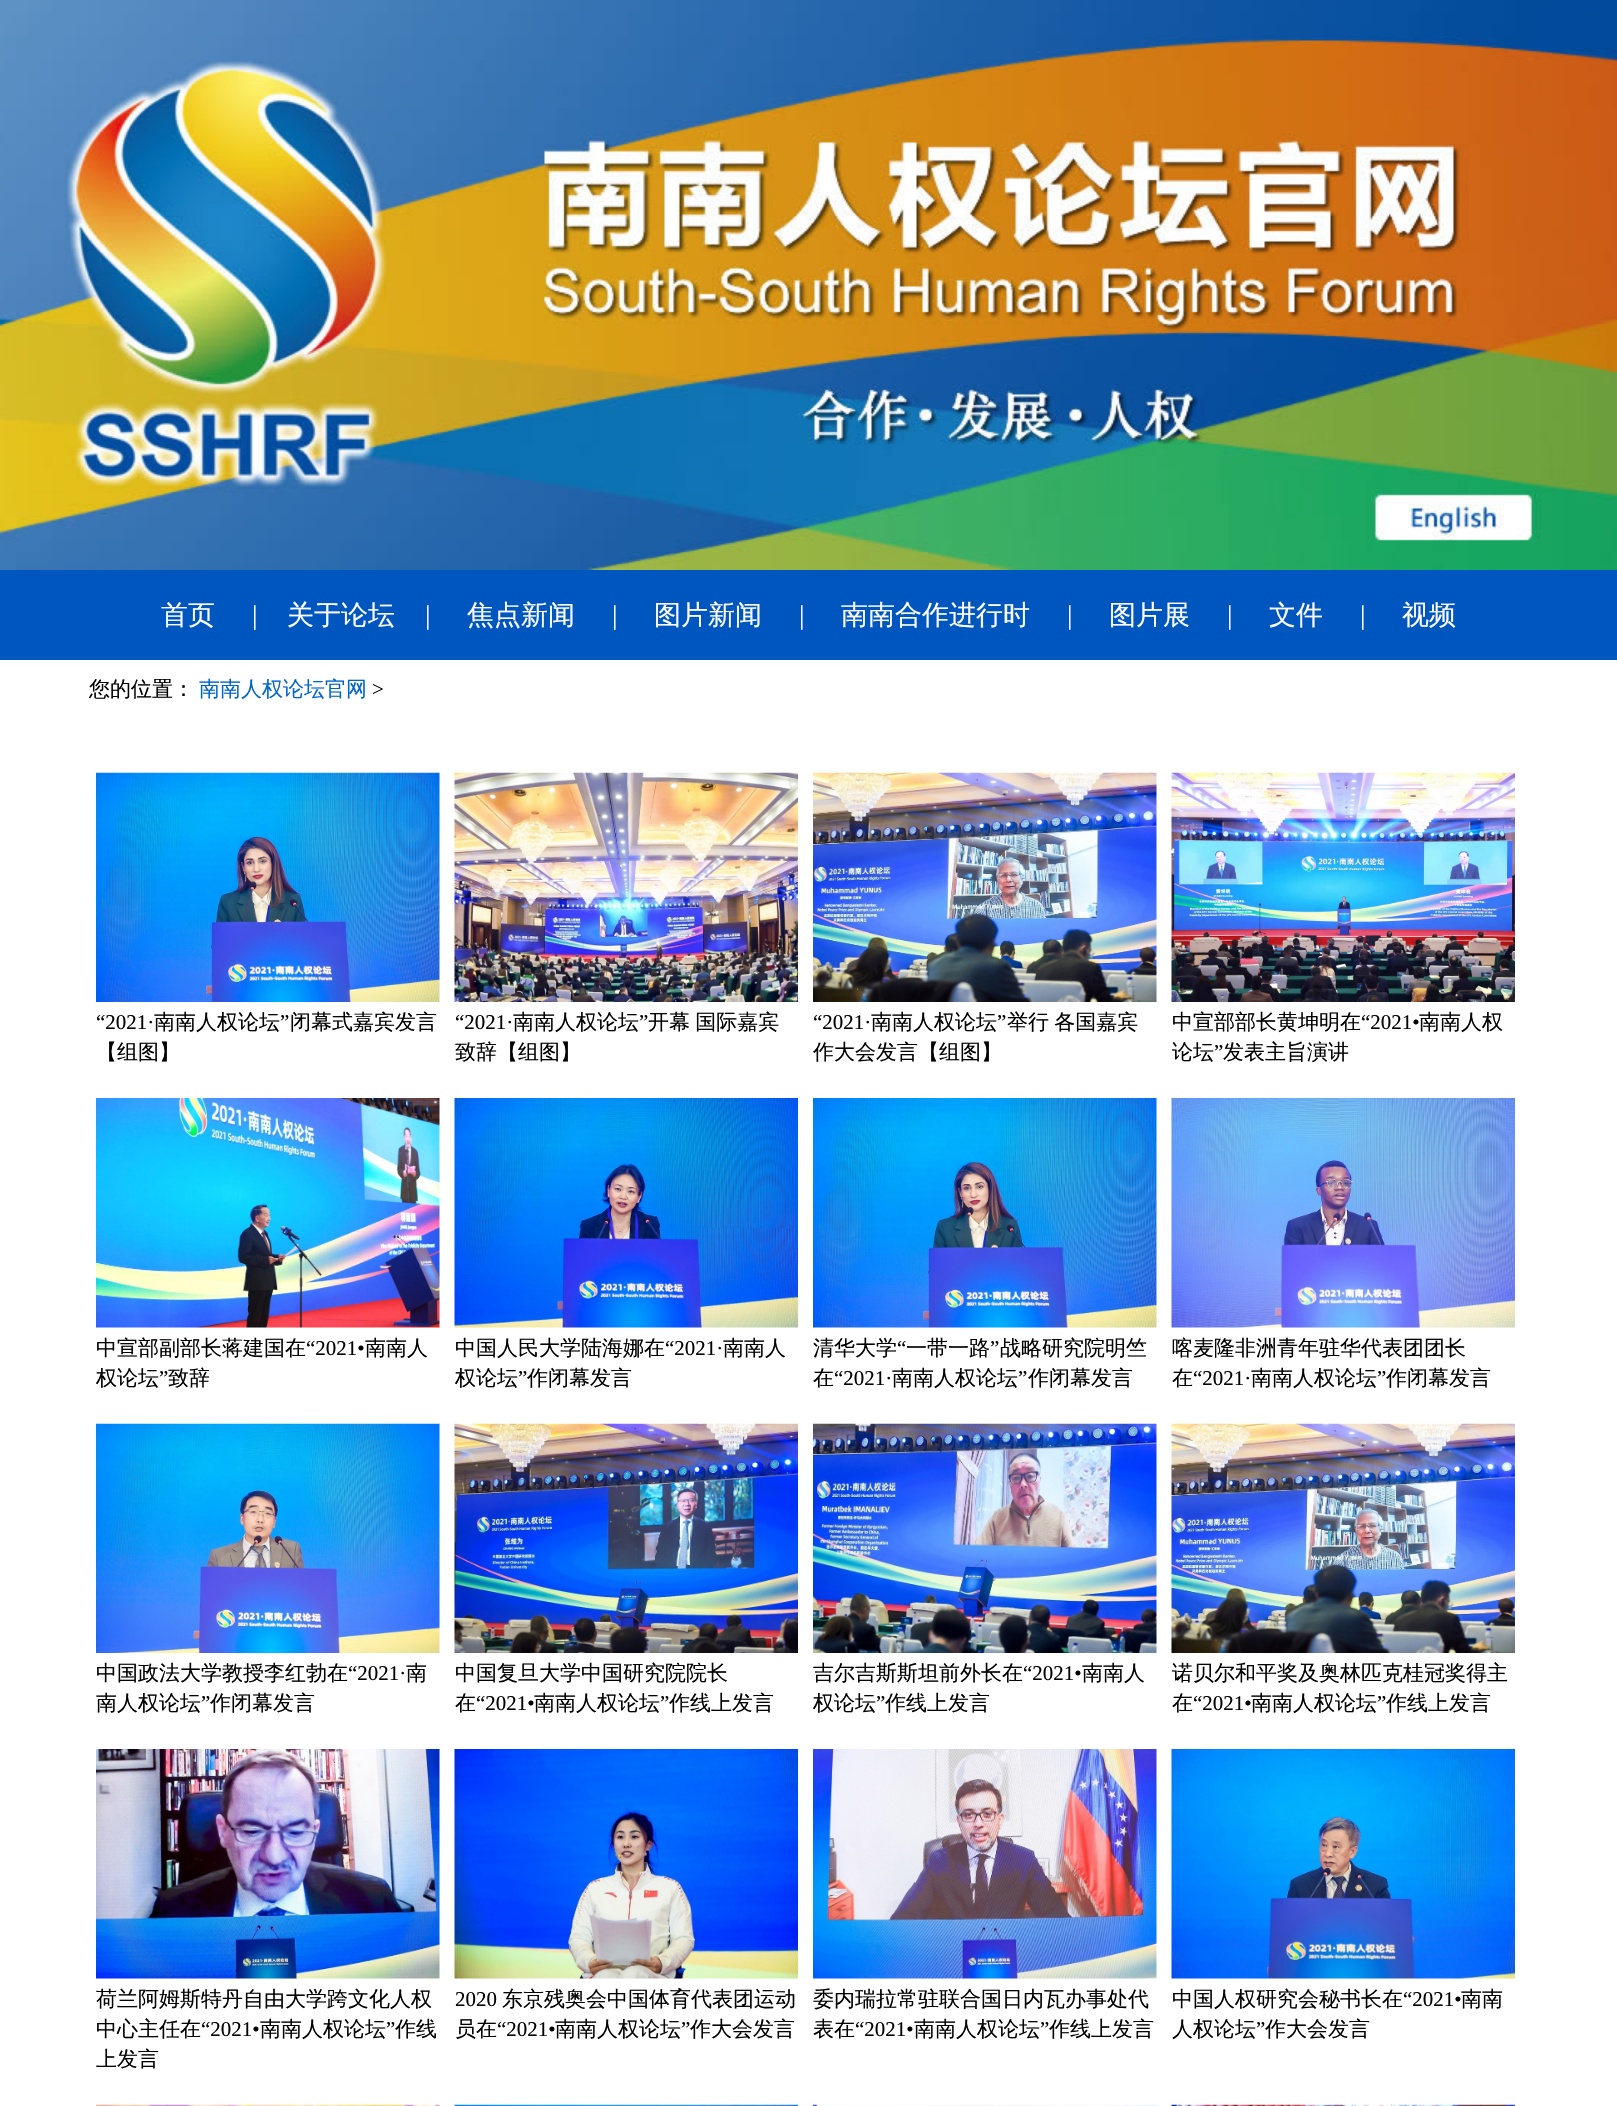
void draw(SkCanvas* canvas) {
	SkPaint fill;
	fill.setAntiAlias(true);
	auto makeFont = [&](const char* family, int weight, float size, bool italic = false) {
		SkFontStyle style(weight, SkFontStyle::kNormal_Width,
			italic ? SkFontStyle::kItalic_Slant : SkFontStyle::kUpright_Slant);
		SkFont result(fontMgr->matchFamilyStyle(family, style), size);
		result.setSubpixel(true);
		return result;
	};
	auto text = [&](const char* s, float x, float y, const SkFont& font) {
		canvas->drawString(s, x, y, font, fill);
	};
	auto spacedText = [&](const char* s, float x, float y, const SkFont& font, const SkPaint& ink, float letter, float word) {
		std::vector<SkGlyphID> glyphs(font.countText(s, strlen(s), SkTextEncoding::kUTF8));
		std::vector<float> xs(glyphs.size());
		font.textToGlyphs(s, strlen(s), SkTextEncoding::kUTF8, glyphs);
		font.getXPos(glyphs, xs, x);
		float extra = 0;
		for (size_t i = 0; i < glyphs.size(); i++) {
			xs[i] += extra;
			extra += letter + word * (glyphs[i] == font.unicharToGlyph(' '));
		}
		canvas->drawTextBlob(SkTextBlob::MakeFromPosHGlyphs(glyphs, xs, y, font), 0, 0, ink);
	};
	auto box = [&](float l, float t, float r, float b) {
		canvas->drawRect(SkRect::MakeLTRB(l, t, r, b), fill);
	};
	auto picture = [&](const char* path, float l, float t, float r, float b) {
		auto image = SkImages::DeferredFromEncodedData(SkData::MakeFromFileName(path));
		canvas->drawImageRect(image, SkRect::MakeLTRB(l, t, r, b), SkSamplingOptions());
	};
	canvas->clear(0xFFFFFFFF);
	picture("image0.png", 0, 0, 1617, 570);
	fill.setColor(0xFF0056BF);
	box(0, 570, 1617, 660);
	picture("image1.png", 96, 772, 440, 1002);
	picture("image2.png", 454, 772, 798, 1002);
	picture("image3.png", 813, 772, 1157, 1002);
	picture("image4.png", 1171, 772, 1515, 1002);
	picture("image5.png", 96, 1098, 440, 1328);
	picture("image6.png", 454, 1098, 798, 1328);
	picture("image7.png", 813, 1098, 1157, 1328);
	picture("image8.png", 1171, 1098, 1515, 1328);
	picture("image9.png", 96, 1423, 440, 1653);
	picture("image10.png", 454, 1423, 798, 1653);
	picture("image11.png", 813, 1423, 1157, 1653);
	picture("image12.png", 1171, 1423, 1515, 1653);
	picture("image13.png", 96, 1749, 440, 1979);
	picture("image14.png", 454, 1749, 798, 1979);
	picture("image15.png", 813, 1749, 1157, 1979);
	picture("image16.png", 1171, 1749, 1515, 1979);
	picture("image17.png", 96, 2104, 440, 2106);
	picture("image18.png", 454, 2104, 798, 2106);
	picture("image19.png", 813, 2104, 1157, 2106);
	picture("image20.png", 1171, 2104, 1515, 2106);
	auto font1 = makeFont("WenQuanYi Zen Hei", 500, 27);
	fill.setColor(0xFFFFFFFF);
	text("首页", 161, 624, font1);
	auto font2 = makeFont("Liberation Serif", 400, 27);
	text("|", 252, 624, font2);
	text("关于论坛", 287, 624, font1);
	text("|", 425, 624, font2);
	text("焦点新闻", 467, 624, font1);
	text("|", 612, 624, font2);
	text("图片新闻", 654, 624, font1);
	text("|", 799, 624, font2);
	text("南南合作进行时", 841, 624, font1);
	text("|", 1067, 624, font2);
	text("图片展", 1109, 624, font1);
	text("|", 1227, 624, font2);
	text("文件", 1269, 624, font1);
	text("|", 1360, 624, font2);
	text("视频", 1402, 624, font1);
	auto font3 = makeFont("WenQuanYi Zen Hei", 500, 21);
	fill.setColor(0xFF000000);
	text("您的位置：", 89, 696, font3);
	fill.setColor(0xFF0066CC);
	text("南南人权论坛官网", 199, 696, font3);
	auto font4 = makeFont("Liberation Serif", 400, 21);
	fill.setColor(0xFF000000);
	text(">", 372, 696, font4);
	text("“2021·", 96, 1029, font4);
	text("南南人权论坛", 154, 1029, font3);
	text("”", 280, 1029, font4);
	text("闭幕式嘉宾发言", 290, 1029, font3);
	text("【组图】", 96, 1059, font3);
	text("“2021·", 455, 1029, font4);
	text("南南人权论坛", 513, 1029, font3);
	text("”", 639, 1029, font4);
	spacedText("开幕 国际嘉宾", 648, 1029, font3, fill, 0, -1);
	text("致辞【组图】", 455, 1059, font3);
	text("“2021·", 813, 1029, font4);
	text("南南人权论坛", 871, 1029, font3);
	text("”", 997, 1029, font4);
	spacedText("举行 各国嘉宾", 1007, 1029, font3, fill, 0, -1);
	text("作大会发言【组图】", 813, 1059, font3);
	text("中宣部部长黄坤明在", 1172, 1029, font3);
	text("“2021•", 1361, 1029, font4);
	text("南南人权", 1419, 1029, font3);
	text("论坛", 1172, 1059, font3);
	text("”", 1214, 1059, font4);
	text("发表主旨演讲", 1223, 1059, font3);
	text("中宣部副部长蒋建国在", 96, 1355, font3);
	text("“2021•", 306, 1355, font4);
	text("南南人", 365, 1355, font3);
	text("权论坛", 96, 1385, font3);
	text("”", 159, 1385, font4);
	text("致辞", 168, 1385, font3);
	text("中国人民大学陆海娜在", 455, 1355, font3);
	text("“2021·", 665, 1355, font4);
	text("南南人", 723, 1355, font3);
	text("权论坛", 455, 1385, font3);
	text("”", 518, 1385, font4);
	text("作闭幕发言", 527, 1385, font3);
	text("清华大学", 813, 1355, font3);
	text("“", 897, 1355, font4);
	text("一带一路", 906, 1355, font3);
	text("”", 990, 1355, font4);
	text("战略研究院明竺", 1000, 1355, font3);
	text("在", 813, 1385, font3);
	text("“2021·", 834, 1385, font4);
	text("南南人权论坛", 892, 1385, font3);
	text("”", 1018, 1385, font4);
	text("作闭幕发言", 1028, 1385, font3);
	text("喀麦隆非洲青年驻华代表团团长", 1172, 1355, font3);
	text("在", 1172, 1385, font3);
	text("“2021·", 1193, 1385, font4);
	text("南南人权论坛", 1251, 1385, font3);
	text("”", 1377, 1385, font4);
	text("作闭幕发言", 1386, 1385, font3);
	text("中国政法大学教授李红勃在", 96, 1680, font3);
	text("“2021·", 348, 1680, font4);
	text("南", 406, 1680, font3);
	text("南人权论坛", 96, 1710, font3);
	text("”", 201, 1710, font4);
	text("作闭幕发言", 210, 1710, font3);
	text("中国复旦大学中国研究院院长", 455, 1680, font3);
	text("在", 455, 1710, font3);
	text("“2021•", 476, 1710, font4);
	text("南南人权论坛", 534, 1710, font3);
	text("”", 660, 1710, font4);
	text("作线上发言", 669, 1710, font3);
	text("吉尔吉斯斯坦前外长在", 813, 1680, font3);
	text("“2021•", 1023, 1680, font4);
	text("南南人", 1082, 1680, font3);
	text("权论坛", 813, 1710, font3);
	text("”", 876, 1710, font4);
	text("作线上发言", 885, 1710, font3);
	text("诺贝尔和平奖及奥林匹克桂冠奖得主", 1172, 1680, font3);
	text("在", 1172, 1710, font3);
	text("“2021•", 1193, 1710, font4);
	text("南南人权论坛", 1251, 1710, font3);
	text("”", 1377, 1710, font4);
	text("作线上发言", 1386, 1710, font3);
	text("荷兰阿姆斯特丹自由大学跨文化人权", 96, 2006, font3);
	text("中心主任在", 96, 2036, font3);
	text("“2021•", 201, 2036, font4);
	text("南南人权论坛", 260, 2036, font3);
	text("”", 386, 2036, font4);
	text("作线", 395, 2036, font3);
	text("上发言", 96, 2066, font3);
	text("2020", 455, 2006, font4);
	text("东京残奥会中国体育代表团运动", 502, 2006, font3);
	text("员在", 455, 2036, font3);
	text("“2021•", 497, 2036, font4);
	text("南南人权论坛", 555, 2036, font3);
	text("”", 681, 2036, font4);
	text("作大会发言", 690, 2036, font3);
	text("委内瑞拉常驻联合国日内瓦办事处代", 813, 2006, font3);
	text("表在", 813, 2036, font3);
	text("“2021•", 855, 2036, font4);
	text("南南人权论坛", 914, 2036, font3);
	text("”", 1040, 2036, font4);
	text("作线上发言", 1049, 2036, font3);
	text("中国人权研究会秘书长在", 1172, 2006, font3);
	text("“2021•", 1403, 2006, font4);
	text("南南", 1461, 2006, font3);
	text("人权论坛", 1172, 2036, font3);
	text("”", 1256, 2036, font4);
	text("作大会发言", 1265, 2036, font3);
}
